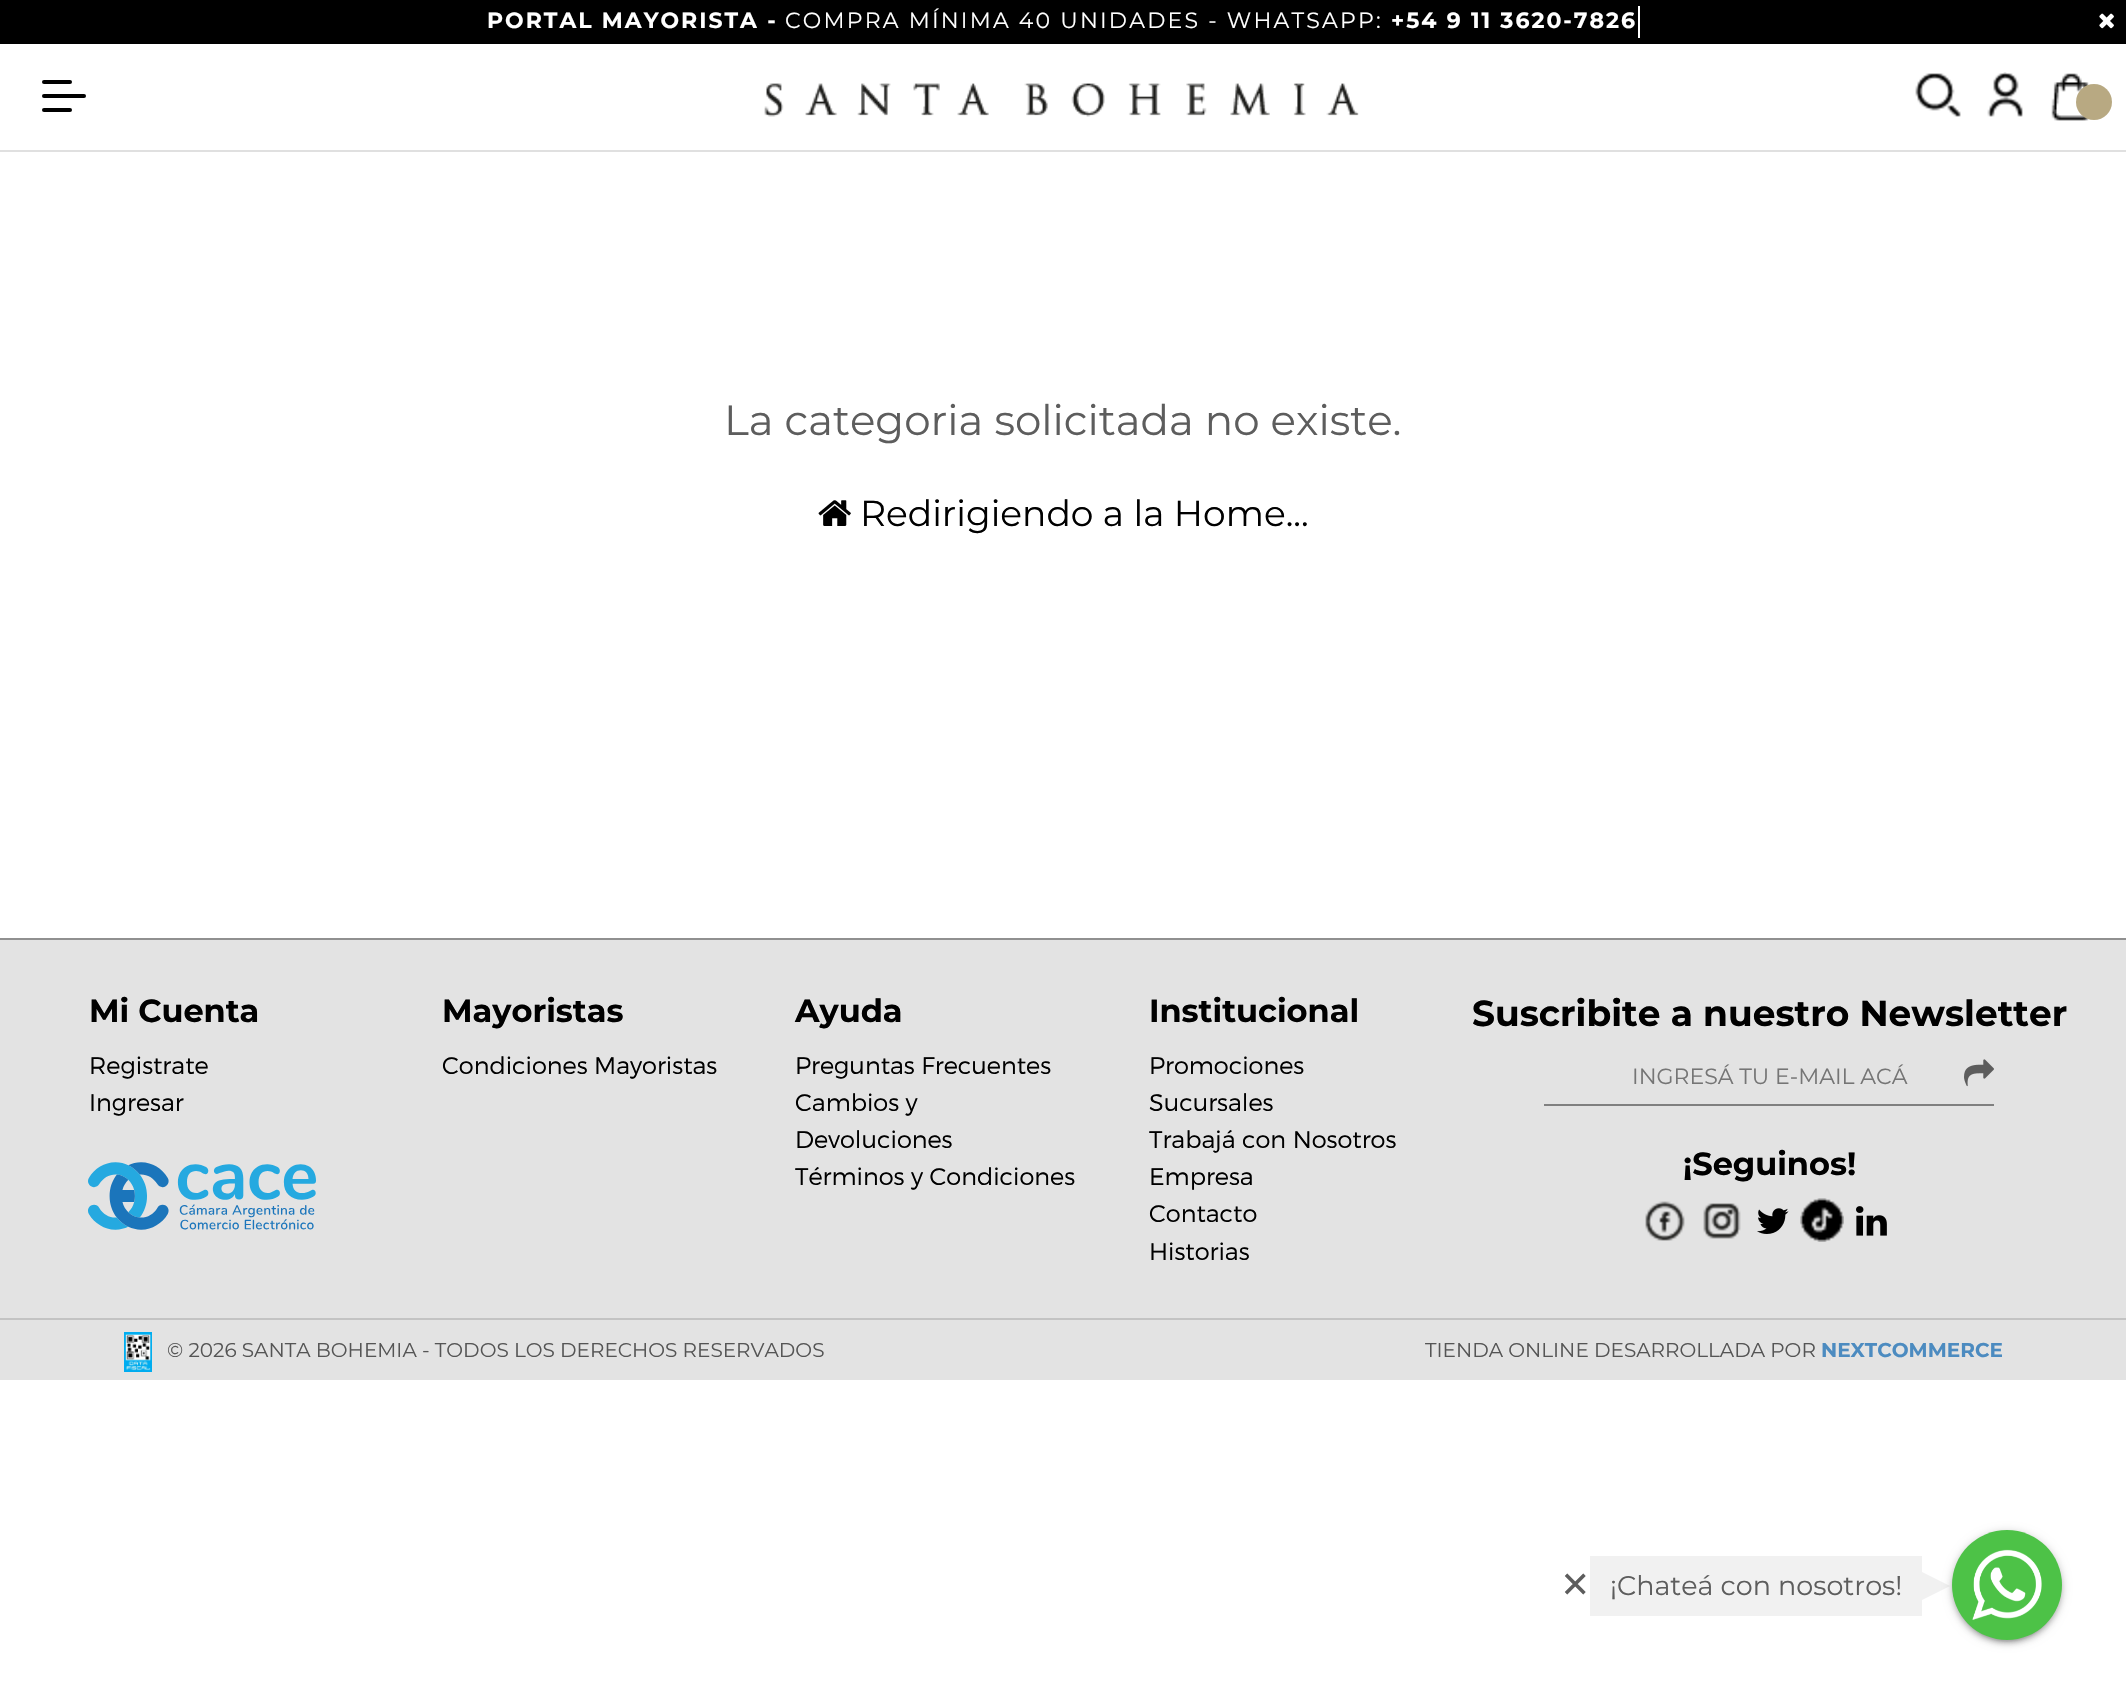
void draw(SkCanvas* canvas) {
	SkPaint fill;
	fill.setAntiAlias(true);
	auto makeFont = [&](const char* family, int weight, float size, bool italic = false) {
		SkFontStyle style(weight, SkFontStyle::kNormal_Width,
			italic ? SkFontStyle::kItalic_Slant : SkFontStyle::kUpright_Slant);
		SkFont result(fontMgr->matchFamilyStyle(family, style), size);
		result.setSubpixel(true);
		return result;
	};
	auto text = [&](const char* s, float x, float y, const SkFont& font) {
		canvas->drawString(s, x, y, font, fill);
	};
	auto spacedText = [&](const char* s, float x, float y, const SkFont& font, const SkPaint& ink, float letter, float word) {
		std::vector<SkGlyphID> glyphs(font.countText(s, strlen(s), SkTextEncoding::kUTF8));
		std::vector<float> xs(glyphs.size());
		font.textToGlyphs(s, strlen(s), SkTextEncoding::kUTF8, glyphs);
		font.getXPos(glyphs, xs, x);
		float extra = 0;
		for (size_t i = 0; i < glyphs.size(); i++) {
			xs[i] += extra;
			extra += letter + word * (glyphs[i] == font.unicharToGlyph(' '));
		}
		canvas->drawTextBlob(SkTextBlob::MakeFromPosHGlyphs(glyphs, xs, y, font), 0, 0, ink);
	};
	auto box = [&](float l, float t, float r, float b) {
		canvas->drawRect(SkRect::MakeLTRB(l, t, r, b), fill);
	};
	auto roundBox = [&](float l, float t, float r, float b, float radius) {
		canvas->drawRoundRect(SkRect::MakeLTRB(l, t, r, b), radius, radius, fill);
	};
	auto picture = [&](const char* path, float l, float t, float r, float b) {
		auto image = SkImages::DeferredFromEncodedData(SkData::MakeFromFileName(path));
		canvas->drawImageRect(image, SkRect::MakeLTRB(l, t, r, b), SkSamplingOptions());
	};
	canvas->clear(0xFFFFFFFF);
	fill.setColor(0xFF000000);
	box(0, 0, 2126, 44);
	fill.setColor(0xFFFFFFFF);
	box(1638, 6, 1640, 38);
	picture("image0.png", 2099, 13, 2114, 29);
	fill.setColor(0xFFE0E0E0);
	box(0, 150, 2126, 152);
	fill.setColor(0xFF000000);
	roundBox(42, 80, 72, 84, 2);
	roundBox(42, 94, 86, 98, 2);
	roundBox(42, 108, 72, 112, 2);
	picture("image1.png", 764, 83, 1359, 117);
	picture("image2.png", 1915, 73, 1961, 117);
	picture("image3.png", 1987, 72, 2023, 117);
	picture("image4.png", 2051, 73, 2089, 121);
	fill.setColor(0xFFB8A982);
	canvas->drawCircle(2094, 102, 18, fill);
	picture("image5.png", 818, 500, 851, 526);
	fill.setColor(0xFFE3E3E3);
	box(0, 940, 2126, 1318);
	fill.setColor(0xFF909090);
	box(0, 938, 2126, 940);
	picture("image6.png", 88, 1162, 316, 1230);
	fill.setColor(0xFF808080);
	box(1544, 1104, 1994, 1106);
	picture("image7.png", 1964, 1059, 1994, 1087);
	picture("image8.png", 1645, 1201, 1685, 1241);
	picture("image9.png", 1703, 1203, 1741, 1239);
	picture("image10.png", 1757, 1208, 1789, 1234);
	picture("image11.png", 1800, 1198, 1844, 1242);
	picture("image12.png", 1856, 1206, 1887, 1236);
	fill.setColor(0xFFE3E3E3);
	box(0, 1320, 2126, 1380);
	fill.setColor(0xFFC3C3C3);
	box(0, 1318, 2126, 1320);
	picture("image13.png", 124, 1332, 152, 1372);
	fill.setColor(0xFFF1F1F1);
	box(1590, 1556, 1922, 1616);
	canvas->drawPath(SkPathBuilder().moveTo(1922, 1600).lineTo(1922, 1572).lineTo(1950, 1586).close().detach(), fill);
	fill.setColor(0x33000000);
	fill.setMaskFilter(SkMaskFilter::MakeBlur(kNormal_SkBlurStyle, 5));
	canvas->drawRoundRect(SkRect::MakeLTRB(1952, 1532, 2062, 1642), 55, 55, fill);
	fill.setMaskFilter(nullptr);
	fill.setColor(0x1F000000);
	fill.setMaskFilter(SkMaskFilter::MakeBlur(kNormal_SkBlurStyle, 1));
	canvas->drawRoundRect(SkRect::MakeLTRB(1956, 1540, 2058, 1642), 51, 51, fill);
	fill.setMaskFilter(nullptr);
	fill.setColor(0x24000000);
	fill.setMaskFilter(SkMaskFilter::MakeBlur(kNormal_SkBlurStyle, 2));
	canvas->drawRoundRect(SkRect::MakeLTRB(1952, 1534, 2062, 1644), 55, 55, fill);
	fill.setMaskFilter(nullptr);
	fill.setColor(0xFF4DC247);
	canvas->drawCircle(2007, 1585, 55, fill);
	picture("image14.png", 1972, 1549, 2042, 1620);
	auto font1 = makeFont("Montserrat", 700, 22);
	fill.setColor(0xFFFFFFFF);
	spacedText("PORTAL MAYORISTA -", 487, 28, font1, fill, 2, 0);
	auto font2 = makeFont("Montserrat", 400, 22);
	spacedText("COMPRA MÍNIMA 40 UNIDADES - WHATSAPP:", 785, 28, font2, fill, 2.2f, 0);
	spacedText("+54 9 11 3620-7826", 1391, 28, font1, fill, 2, 0);
	auto font3 = makeFont("Montserrat", 400, 42);
	fill.setColor(0xFF5D5D5D);
	text("La categoria solicitada no existe.", 724, 435, font3);
	auto font4 = makeFont("Montserrat", 400, 36);
	fill.setColor(0xFF000000);
	text("Redirigiendo a la Home...", 860, 526, font4);
	auto font5 = makeFont("Montserrat", 700, 32);
	text("Mi Cuenta", 89, 1022, font5);
	auto font6 = makeFont("Montserrat", 300, 24);
	text("Registrate", 89, 1074, font6);
	text("Ingresar", 89, 1111, font6);
	text("Mayoristas", 442, 1022, font5);
	text("Condiciones Mayoristas", 442, 1074, font6);
	text("Ayuda", 795, 1022, font5);
	text("Preguntas Frecuentes", 795, 1074, font6);
	text("Cambios y", 795, 1111, font6);
	text("Devoluciones", 795, 1148, font6);
	text("Términos y Condiciones", 795, 1185, font6);
	text("Institucional", 1149, 1022, font5);
	text("Promociones", 1149, 1074, font6);
	text("Sucursales", 1149, 1111, font6);
	text("Trabajá con Nosotros", 1149, 1148, font6);
	text("Empresa", 1149, 1185, font6);
	text("Contacto", 1149, 1222, font6);
	text("Historias", 1149, 1260, font6);
	auto font7 = makeFont("Montserrat", 700, 36);
	text("Suscribite a nuestro Newsletter", 1472, 1026, font7);
	fill.setColor(0xFF757575);
	text("INGRESÁ TU E-MAIL ACÁ", 1632, 1084, font2);
	fill.setColor(0xFF000000);
	text("¡Seguinos!", 1683, 1175, font5);
	auto font8 = makeFont("Montserrat", 400, 20);
	fill.setColor(0xFF555555);
	text("© 2026 SANTA BOHEMIA - TODOS LOS DERECHOS RESERVADOS", 167, 1357, font8);
	text("TIENDA ONLINE DESARROLLADA POR", 1425, 1357, font8);
	auto font9 = makeFont("Montserrat", 700, 20);
	fill.setColor(0xFF4C8BC0);
	text("NEXTCOMMERCE", 1821, 1357, font9);
	auto font10 = makeFont("Montserrat", 400, 60);
	fill.setColor(0xFF5D5D5D);
	text("×", 1558, 1605, font10);
	auto font11 = makeFont("Montserrat", 400, 27);
	text("¡Chateá con nosotros!", 1610, 1595, font11);
}
